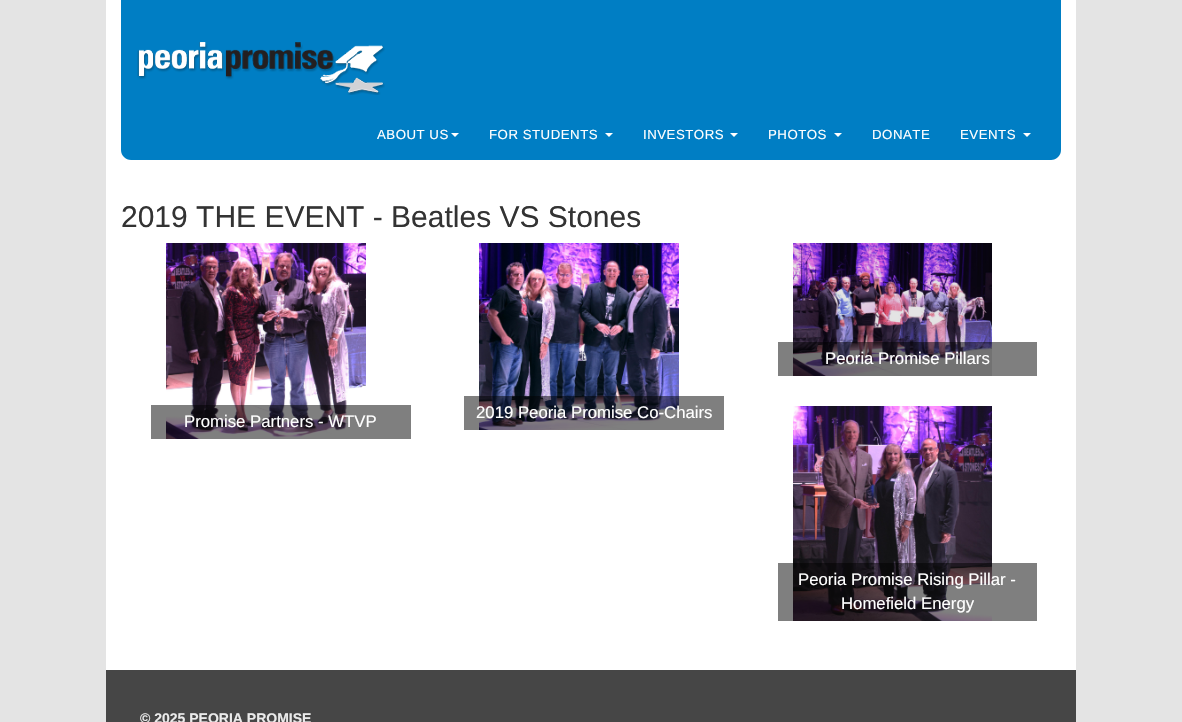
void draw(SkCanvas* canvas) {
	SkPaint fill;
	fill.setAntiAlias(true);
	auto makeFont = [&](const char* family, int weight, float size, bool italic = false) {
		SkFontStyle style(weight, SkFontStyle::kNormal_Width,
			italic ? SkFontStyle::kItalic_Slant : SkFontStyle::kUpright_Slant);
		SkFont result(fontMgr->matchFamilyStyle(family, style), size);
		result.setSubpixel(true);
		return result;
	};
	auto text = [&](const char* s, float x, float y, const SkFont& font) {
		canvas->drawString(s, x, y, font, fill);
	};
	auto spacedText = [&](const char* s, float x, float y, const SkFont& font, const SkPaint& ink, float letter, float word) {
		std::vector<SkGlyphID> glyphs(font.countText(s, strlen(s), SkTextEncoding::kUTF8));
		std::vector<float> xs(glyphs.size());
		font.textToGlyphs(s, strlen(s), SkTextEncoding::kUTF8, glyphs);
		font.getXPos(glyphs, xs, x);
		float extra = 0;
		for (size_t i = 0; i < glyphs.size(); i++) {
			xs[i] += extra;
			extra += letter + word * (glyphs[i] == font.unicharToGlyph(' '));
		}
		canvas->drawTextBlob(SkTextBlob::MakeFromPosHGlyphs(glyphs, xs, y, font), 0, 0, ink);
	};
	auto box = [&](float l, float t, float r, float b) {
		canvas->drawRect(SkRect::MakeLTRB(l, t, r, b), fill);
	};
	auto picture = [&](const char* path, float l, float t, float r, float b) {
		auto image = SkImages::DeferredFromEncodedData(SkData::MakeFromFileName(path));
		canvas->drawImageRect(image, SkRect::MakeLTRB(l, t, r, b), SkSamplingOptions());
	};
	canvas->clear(0xFFE4E4E4);
	fill.setColor(0xFFFFFFFF);
	box(106, 0, 1076, 670);
	fill.setColor(0xFF007EC4);
	canvas->drawPath(SkPathBuilder().moveTo(121, 0).lineTo(1061, 0).lineTo(1061, 150).cubicTo(1061, 155.5f, 1056.5f, 160, 1051, 160).lineTo(131, 160).cubicTo(125.5f, 160, 121, 155.5f, 121, 150).close().detach(), fill);
	picture("image0.png", 137, 42, 385, 95);
	fill.setColor(0xFFFFFFFF);
	canvas->drawPath(SkPathBuilder().moveTo(451, 133).lineTo(459, 133).lineTo(455, 137).close().detach(), fill);
	canvas->drawPath(SkPathBuilder().moveTo(605, 133).lineTo(613, 133).lineTo(609, 137).close().detach(), fill);
	canvas->drawPath(SkPathBuilder().moveTo(730, 133).lineTo(738, 133).lineTo(734, 137).close().detach(), fill);
	canvas->drawPath(SkPathBuilder().moveTo(834, 133).lineTo(842, 133).lineTo(838, 137).close().detach(), fill);
	canvas->drawPath(SkPathBuilder().moveTo(1023, 133).lineTo(1031, 133).lineTo(1027, 137).close().detach(), fill);
	picture("image1.png", 793, 243, 992, 376);
	fill.setColor(0x80000000);
	box(778, 342, 1037, 376);
	picture("image2.png", 479, 243, 679, 430);
	box(464, 396, 724, 430);
	picture("image3.png", 166, 243, 366, 439);
	box(151, 405, 411, 439);
	picture("image4.png", 793, 406, 992, 621);
	box(778, 563, 1037, 621);
	fill.setColor(0xFF464646);
	box(106, 670, 1076, 722);
	auto font1 = makeFont("Liberation Sans", 400, 13.25f);
	fill.setColor(0xFFFFFFFF);
	spacedText("ABOUT US", 377, 139, font1, fill, 0.5f, 0);
	spacedText("FOR STUDENTS", 489, 139, font1, fill, 0.5f, 0);
	spacedText("INVESTORS", 643, 139, font1, fill, 0.5f, 0);
	spacedText("PHOTOS", 768, 139, font1, fill, 0.5f, 0);
	spacedText("DONATE", 872, 139, font1, fill, 0.5f, 0);
	spacedText("EVENTS", 960, 139, font1, fill, 0.5f, 0);
	auto font2 = makeFont("Liberation Sans", 400, 30);
	fill.setColor(0xFF333333);
	text("2019 THE EVENT - Beatles VS Stones", 121, 227, font2);
	auto font3 = makeFont("Liberation Sans", 400, 16.75f);
	fill.setColor(0xFFFFFFFF);
	text("Peoria Promise Pillars", 825, 364, font3);
	text("2019 Peoria Promise Co-Chairs", 476, 418, font3);
	text("Promise Partners - WTVP", 184, 427, font3);
	text("Peoria Promise Rising Pillar -", 798, 585, font3);
	text("Homefield Energy", 841, 609, font3);
	auto font4 = makeFont("Liberation Sans", 700, 14);
	fill.setColor(0xFFEBEBEB);
	text("© 2025 PEORIA PROMISE", 140, 723, font4);
}
